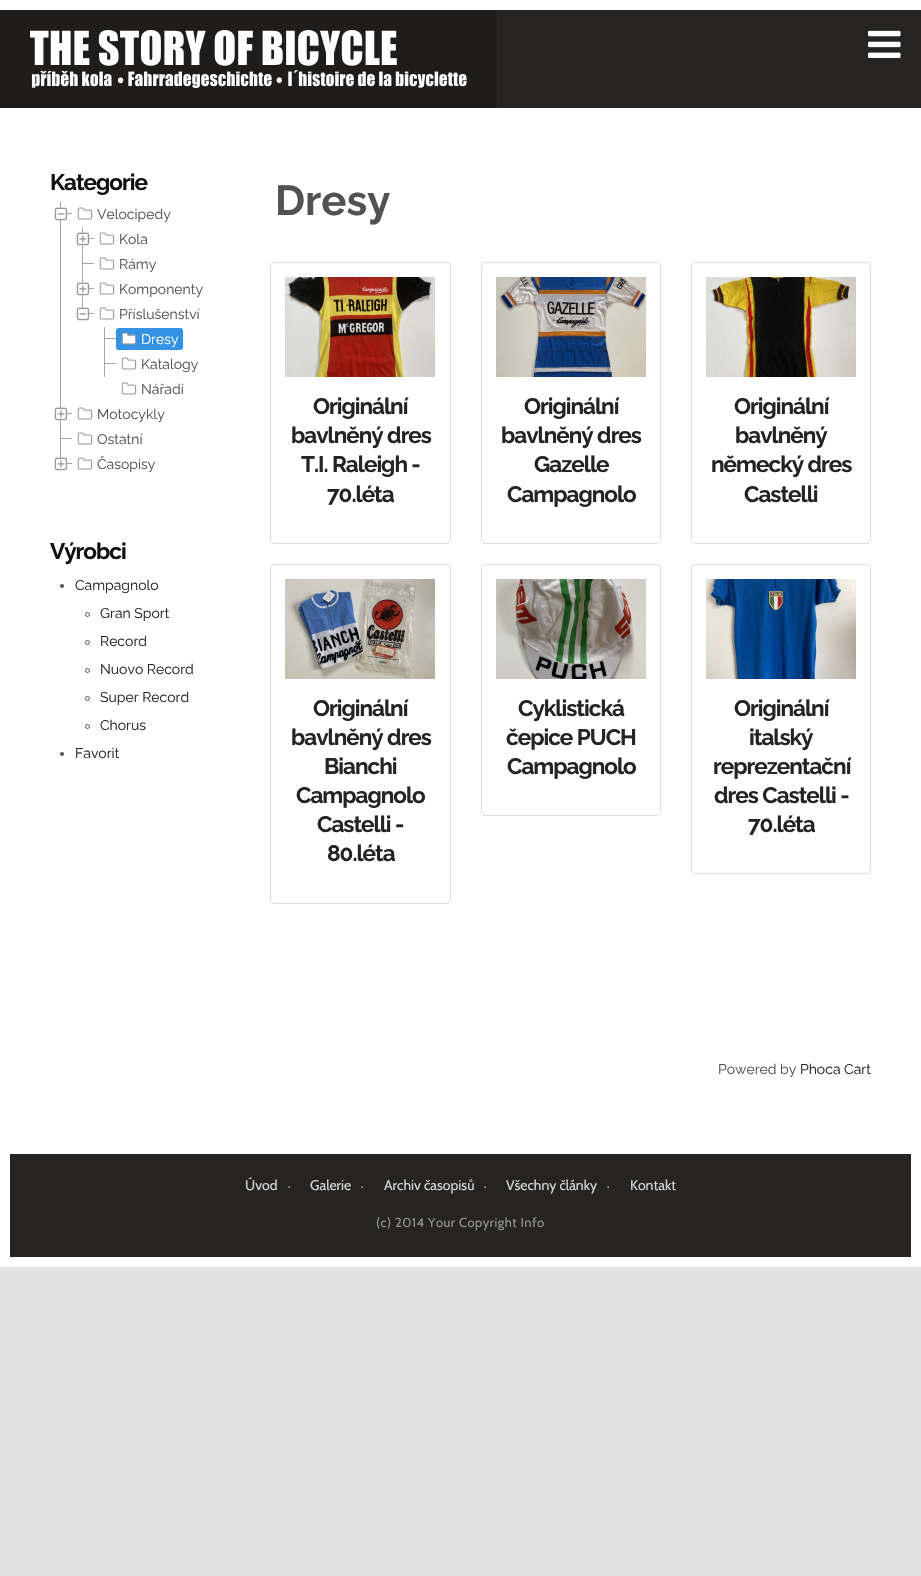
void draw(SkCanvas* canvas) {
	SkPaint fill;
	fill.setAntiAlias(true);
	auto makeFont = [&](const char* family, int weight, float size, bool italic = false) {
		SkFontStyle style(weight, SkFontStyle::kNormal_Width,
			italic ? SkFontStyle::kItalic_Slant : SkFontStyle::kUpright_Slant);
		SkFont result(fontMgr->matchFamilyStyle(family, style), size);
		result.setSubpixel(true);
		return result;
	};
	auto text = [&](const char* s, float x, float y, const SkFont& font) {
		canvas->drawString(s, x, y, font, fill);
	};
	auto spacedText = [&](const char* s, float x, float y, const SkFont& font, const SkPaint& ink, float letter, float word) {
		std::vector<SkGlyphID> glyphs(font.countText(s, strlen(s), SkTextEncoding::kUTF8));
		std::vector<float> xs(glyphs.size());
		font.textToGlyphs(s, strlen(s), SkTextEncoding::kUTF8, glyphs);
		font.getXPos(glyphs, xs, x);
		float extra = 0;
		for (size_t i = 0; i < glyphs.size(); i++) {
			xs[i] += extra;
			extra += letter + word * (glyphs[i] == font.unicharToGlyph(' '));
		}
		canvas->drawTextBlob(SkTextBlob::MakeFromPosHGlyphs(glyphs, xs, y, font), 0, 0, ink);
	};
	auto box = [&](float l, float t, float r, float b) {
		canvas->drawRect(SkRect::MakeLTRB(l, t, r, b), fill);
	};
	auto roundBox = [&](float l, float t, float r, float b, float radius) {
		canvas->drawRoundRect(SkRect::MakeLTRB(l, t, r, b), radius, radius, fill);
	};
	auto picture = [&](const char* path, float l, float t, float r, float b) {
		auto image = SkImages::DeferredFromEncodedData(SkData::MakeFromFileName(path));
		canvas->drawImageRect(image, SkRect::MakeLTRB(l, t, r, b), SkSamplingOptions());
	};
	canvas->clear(0xFFE2E2E2);
	fill.setColor(0xFF252422);
	box(497, 10, 921, 108);
	fill.setColor(0xFFFFFFFF);
	box(0, 0, 921, 10);
	fill.setColor(0xFF1E1D1B);
	box(0, 10, 497, 108);
	picture("image0.png", 30, 30, 467, 88);
	picture("image1.png", 868, 30, 901, 58);
	fill.setColor(0xFFFFFFFF);
	box(0, 108, 921, 1267);
	fill.setColor(0xFFA6A6A6);
	box(60, 202, 61, 452);
	picture("image2.png", 54, 207, 72, 221);
	picture("image3.png", 77, 207, 93, 220);
	box(82, 227, 83, 302);
	picture("image4.png", 76, 232, 94, 246);
	picture("image3.png", 99, 232, 115, 245);
	box(83, 263, 94, 264);
	picture("image3.png", 99, 257, 115, 270);
	picture("image4.png", 76, 282, 94, 296);
	picture("image3.png", 99, 282, 115, 295);
	picture("image5.png", 76, 302, 94, 321);
	picture("image3.png", 99, 307, 115, 320);
	box(104, 327, 105, 377);
	box(105, 338, 116, 339);
	fill.setColor(0xFF3392E3);
	roundBox(116, 328, 183, 350, 3);
	picture("image6.png", 121, 332, 137, 345);
	fill.setColor(0xFFA6A6A6);
	box(105, 363, 116, 364);
	picture("image3.png", 121, 357, 137, 370);
	picture("image3.png", 121, 382, 137, 395);
	picture("image4.png", 54, 407, 72, 421);
	picture("image3.png", 77, 407, 93, 420);
	box(61, 438, 72, 439);
	picture("image3.png", 77, 432, 93, 445);
	picture("image7.png", 54, 452, 72, 471);
	picture("image3.png", 77, 457, 93, 470);
	fill.setColor(0xFF525252);
	canvas->drawCircle(62, 586, 2, fill);
	fill.setStyle(SkPaint::kStroke_Style);
	fill.setStrokeWidth(1);
	canvas->drawCircle(87.5f, 614.5f, 2, fill);
	canvas->drawCircle(87.5f, 642.5f, 2, fill);
	canvas->drawCircle(87.5f, 670.5f, 2, fill);
	canvas->drawCircle(87.5f, 698.5f, 2, fill);
	canvas->drawCircle(87.5f, 726.5f, 2, fill);
	fill.setStyle(SkPaint::kFill_Style);
	canvas->drawCircle(62, 754, 2, fill);
	fill.setStyle(SkPaint::kStroke_Style);
	fill.setColor(0xFFDDDDDD);
	canvas->drawRoundRect(SkRect::MakeLTRB(270.5f, 262.5f, 450.5f, 543.5f), 3.5f, 3.5f, fill);
	picture("image8.png", 285, 277, 435, 377);
	canvas->drawRoundRect(SkRect::MakeLTRB(481.5f, 262.5f, 660.5f, 543.5f), 3.5f, 3.5f, fill);
	picture("image9.png", 496, 277, 646, 377);
	canvas->drawRoundRect(SkRect::MakeLTRB(691.5f, 262.5f, 870.5f, 543.5f), 3.5f, 3.5f, fill);
	picture("image10.png", 706, 277, 856, 377);
	canvas->drawRoundRect(SkRect::MakeLTRB(270.5f, 564.5f, 450.5f, 903.5f), 3.5f, 3.5f, fill);
	picture("image11.png", 285, 579, 435, 679);
	canvas->drawRoundRect(SkRect::MakeLTRB(481.5f, 564.5f, 660.5f, 815.5f), 3.5f, 3.5f, fill);
	picture("image12.png", 496, 579, 646, 679);
	canvas->drawRoundRect(SkRect::MakeLTRB(691.5f, 564.5f, 870.5f, 873.5f), 3.5f, 3.5f, fill);
	picture("image13.png", 706, 579, 856, 679);
	fill.setStyle(SkPaint::kFill_Style);
	fill.setColor(0xFF252422);
	box(10, 1154, 911, 1257);
	auto font1 = makeFont("Raleway", 700, 22.5f);
	fill.setColor(0xFF111111);
	spacedText("Kategorie", 50, 190, font1, fill, -1, 0);
	auto font2 = makeFont("Raleway", 400, 14);
	fill.setColor(0xFF525252);
	text("Velocipedy", 97, 219, font2);
	text("Kola", 119, 244, font2);
	text("Rámy", 119, 269, font2);
	text("Komponenty", 119, 294, font2);
	text("Příslušenství", 119, 319, font2);
	fill.setColor(0xFFFFFFFF);
	text("Dresy", 141, 344, font2);
	fill.setColor(0xFF525252);
	text("Katalogy", 141, 369, font2);
	text("Nářadí", 141, 394, font2);
	text("Motocykly", 97, 419, font2);
	text("Ostatní", 97, 444, font2);
	text("Časopisy", 97, 469, font2);
	fill.setColor(0xFF111111);
	spacedText("Výrobci", 50, 559, font1, fill, -1, 0);
	fill.setColor(0xFF252422);
	text("Campagnolo", 75, 590, font2);
	text("Gran Sport", 100, 618, font2);
	text("Record", 100, 646, font2);
	text("Nuovo Record", 100, 674, font2);
	text("Super Record", 100, 702, font2);
	text("Chorus", 100, 730, font2);
	text("Favorit", 75, 758, font2);
	auto font3 = makeFont("Raleway", 700, 42);
	fill.setColor(0xFF525252);
	text("Dresy", 275, 215, font3);
	fill.setColor(0xFF252422);
	spacedText("Originální", 313, 414, font1, fill, -1, 0);
	spacedText("bavlněný dres", 291, 443, font1, fill, -1, 0);
	spacedText("T.I. Raleigh -", 301, 472, font1, fill, -1, 0);
	spacedText("70.léta", 327, 502, font1, fill, -1, 0);
	spacedText("Originální", 524, 414, font1, fill, -1, 0);
	spacedText("bavlněný dres", 501, 443, font1, fill, -1, 0);
	spacedText("Gazelle", 534, 472, font1, fill, -1, 0);
	spacedText("Campagnolo", 507, 502, font1, fill, -1, 0);
	spacedText("Originální", 734, 414, font1, fill, -1, 0);
	spacedText("bavlněný", 735, 443, font1, fill, -1, 0);
	spacedText("německý dres", 711, 472, font1, fill, -1, 0);
	spacedText("Castelli", 744, 502, font1, fill, -1, 0);
	spacedText("Originální", 313, 716, font1, fill, -1, 0);
	spacedText("bavlněný dres", 291, 745, font1, fill, -1, 0);
	spacedText("Bianchi", 324, 774, font1, fill, -1, 0);
	spacedText("Campagnolo", 296, 803, font1, fill, -1, 0);
	spacedText("Castelli -", 317, 832, font1, fill, -1, 0);
	spacedText("80.léta", 327, 861, font1, fill, -1, 0);
	spacedText("Cyklistická", 518, 716, font1, fill, -1, 0);
	spacedText("čepice PUCH", 506, 745, font1, fill, -1, 0);
	spacedText("Campagnolo", 507, 774, font1, fill, -1, 0);
	spacedText("Originální", 734, 716, font1, fill, -1, 0);
	spacedText("italský", 749, 745, font1, fill, -1, 0);
	spacedText("reprezentační", 713, 774, font1, fill, -1, 0);
	spacedText("dres Castelli -", 714, 803, font1, fill, -1, 0);
	spacedText("70.léta", 748, 832, font1, fill, -1, 0);
	fill.setColor(0xFF525252);
	text("Powered by", 718, 1074, font2);
	fill.setColor(0xFF252422);
	text("Phoca Cart", 800, 1074, font2);
	auto font4 = makeFont("Cabin", 400, 14);
	fill.setColor(0xFFD3D3D3);
	text("Úvod", 245, 1190, font4);
	auto font5 = makeFont("Cabin", 700, 10);
	text("·", 288, 1190, font5);
	text("Galerie", 310, 1190, font4);
	text("·", 361, 1190, font5);
	text("Archiv časopisů", 384, 1190, font4);
	text("·", 484, 1190, font5);
	text("Všechny články", 506, 1190, font4);
	text("·", 607, 1190, font5);
	text("Kontakt", 630, 1190, font4);
	auto font6 = makeFont("Cabin", 400, 13);
	fill.setColor(0xFF929291);
	spacedText("(c) 2014 Your Copyright Info", 376, 1227, font6, fill, 0.5f, 0);
}
